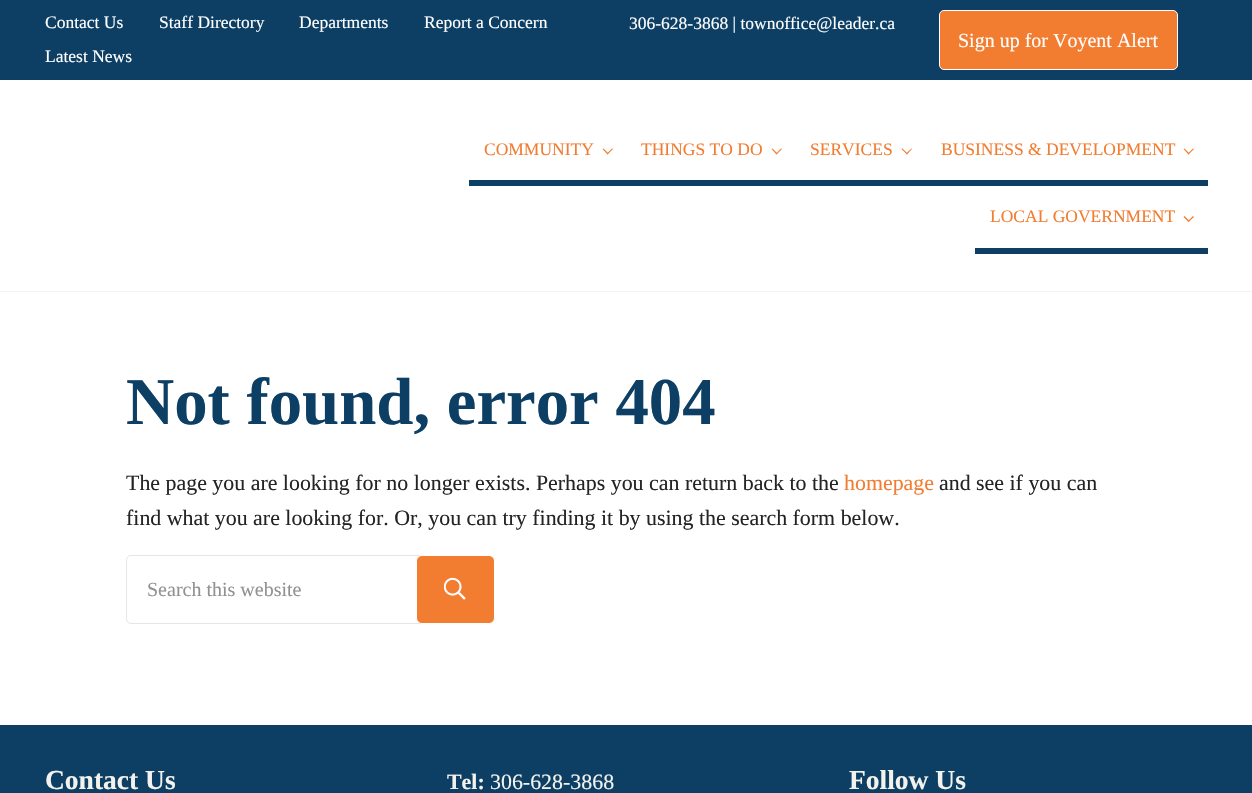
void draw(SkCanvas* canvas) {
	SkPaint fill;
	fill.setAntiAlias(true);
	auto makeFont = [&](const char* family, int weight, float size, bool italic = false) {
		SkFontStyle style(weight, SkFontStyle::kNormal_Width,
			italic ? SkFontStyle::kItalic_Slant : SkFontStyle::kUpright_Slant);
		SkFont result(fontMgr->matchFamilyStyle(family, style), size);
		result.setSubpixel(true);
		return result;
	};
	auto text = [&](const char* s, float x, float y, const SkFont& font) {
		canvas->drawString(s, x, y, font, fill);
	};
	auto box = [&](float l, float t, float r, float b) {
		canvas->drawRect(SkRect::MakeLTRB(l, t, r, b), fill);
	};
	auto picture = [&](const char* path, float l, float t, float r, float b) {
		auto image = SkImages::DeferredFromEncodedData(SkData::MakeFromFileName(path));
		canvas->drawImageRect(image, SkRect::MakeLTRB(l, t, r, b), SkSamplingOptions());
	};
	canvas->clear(0xFFFFFFFF);
	fill.setColor(0xFF0D3F65);
	box(0, 0, 1252, 80);
	fill.setColor(0xFFF27C30);
	canvas->drawRoundRect(SkRect::MakeLTRB(939.5f, 10.5f, 1177.5f, 69.5f), 4.5f, 4.5f, fill);
	fill.setStyle(SkPaint::kStroke_Style);
	fill.setStrokeWidth(1);
	fill.setColor(0xFFFFFFFF);
	canvas->drawRoundRect(SkRect::MakeLTRB(939.5f, 10.5f, 1177.5f, 69.5f), 4.5f, 4.5f, fill);
	fill.setStyle(SkPaint::kFill_Style);
	fill.setColor(0xFFF3F3F4);
	box(0, 291, 1252, 292);
	fill.setColor(0xFF0D3F65);
	box(469, 180, 1208, 186);
	fill.setColor(0xFFF27C30);
	canvas->drawPath(SkPathBuilder().moveTo(612, 148.5f).lineTo(613, 149).lineTo(607.5f, 154.5f).lineTo(607, 153.5f).close().detach(), fill);
	canvas->drawPath(SkPathBuilder().moveTo(603.5f, 148.5f).lineTo(608.5f, 153.5f).lineTo(607.5f, 154.5f).lineTo(602.5f, 149).close().detach(), fill);
	canvas->drawPath(SkPathBuilder().moveTo(781, 148.5f).lineTo(782, 149).lineTo(776.5f, 154.5f).lineTo(776, 153.5f).close().detach(), fill);
	canvas->drawPath(SkPathBuilder().moveTo(772.5f, 148.5f).lineTo(777.5f, 153.5f).lineTo(776.5f, 154.5f).lineTo(771.5f, 149).close().detach(), fill);
	canvas->drawPath(SkPathBuilder().moveTo(911.5f, 148.5f).lineTo(912, 149).lineTo(907, 154.5f).lineTo(906, 153.5f).close().detach(), fill);
	canvas->drawPath(SkPathBuilder().moveTo(902.5f, 148.5f).lineTo(907.5f, 153.5f).lineTo(907, 154.5f).lineTo(901.5f, 149).close().detach(), fill);
	canvas->drawPath(SkPathBuilder().moveTo(1193, 148.5f).lineTo(1194, 149).lineTo(1188.5f, 154.5f).lineTo(1188, 153.5f).close().detach(), fill);
	canvas->drawPath(SkPathBuilder().moveTo(1184.5f, 148.5f).lineTo(1189.5f, 153.5f).lineTo(1188.5f, 154.5f).lineTo(1183.5f, 149).close().detach(), fill);
	fill.setColor(0xFF0D3F65);
	box(975, 248, 1208, 254);
	fill.setColor(0xFFF27C30);
	canvas->drawPath(SkPathBuilder().moveTo(1193, 216).lineTo(1194, 217).lineTo(1188.5f, 222).lineTo(1188, 221).close().detach(), fill);
	canvas->drawPath(SkPathBuilder().moveTo(1184.5f, 216).lineTo(1189.5f, 221).lineTo(1188.5f, 222).lineTo(1183.5f, 217).close().detach(), fill);
	fill.setStyle(SkPaint::kStroke_Style);
	fill.setColor(0xFFE6E6E6);
	canvas->drawRoundRect(SkRect::MakeLTRB(126.5f, 555.5f, 445.5f, 623.5f), 4.5f, 4.5f, fill);
	fill.setStyle(SkPaint::kFill_Style);
	fill.setColor(0xFFF27C30);
	canvas->drawRoundRect(SkRect::MakeLTRB(416.5f, 555.5f, 494.5f, 623.5f), 5.5f, 5.5f, fill);
	fill.setStyle(SkPaint::kStroke_Style);
	fill.setColor(0xFFFFFFFF);
	canvas->drawRoundRect(SkRect::MakeLTRB(416.5f, 555.5f, 494.5f, 623.5f), 5.5f, 5.5f, fill);
	picture("image0.png", 444, 577, 466, 600);
	fill.setStyle(SkPaint::kFill_Style);
	fill.setColor(0xFF0D3F65);
	box(0, 725, 1252, 793);
	auto font1 = makeFont("Liberation Serif", 400, 17.5f);
	fill.setColor(0xFFFFFFFF);
	text("Contact Us", 45, 28, font1);
	text("Staff Directory", 159, 28, font1);
	text("Departments", 299, 28, font1);
	text("Report a Concern", 424, 28, font1);
	text("Latest News", 45, 62, font1);
	text("306-628-3868 | townoffice@leader.ca", 629, 29, font1);
	auto font2 = makeFont("Liberation Serif", 400, 20);
	text("Sign up for Voyent Alert", 958, 47, font2);
	fill.setColor(0xFFF27C30);
	text("COMMUNITY", 484, 155, font1);
	text("THINGS TO DO", 641, 155, font1);
	text("SERVICES", 810, 155, font1);
	text("BUSINESS & DEVELOPMENT", 941, 155, font1);
	text("LOCAL GOVERNMENT", 990, 222, font1);
	auto font3 = makeFont("Liberation Serif", 700, 66.75f);
	fill.setColor(0xFF0D3F65);
	text("Not found, error 404", 126, 424, font3);
	auto font4 = makeFont("Liberation Serif", 400, 21.9f);
	fill.setColor(0xFF252323);
	text("The page you are looking for no longer exists. Perhaps you can return back to the", 126, 490, font4);
	fill.setColor(0xFFF27C30);
	text("homepage", 844, 490, font4);
	fill.setColor(0xFF252323);
	text("and see if you can", 939, 490, font4);
	text("find what you are looking for. Or, you can try finding it by using the search form below.", 126, 525, font4);
	fill.setColor(0xFF929191);
	text("Search this website", 147, 596, font2);
	auto font5 = makeFont("Liberation Serif", 700, 27.5f);
	fill.setColor(0xFFF3F2ED);
	text("Contact Us", 45, 789, font5);
	auto font6 = makeFont("Liberation Serif", 700, 21.9f);
	text("Tel:", 447, 789, font6);
	text("306-628-3868", 490, 789, font4);
	text("Follow Us", 849, 789, font5);
}
